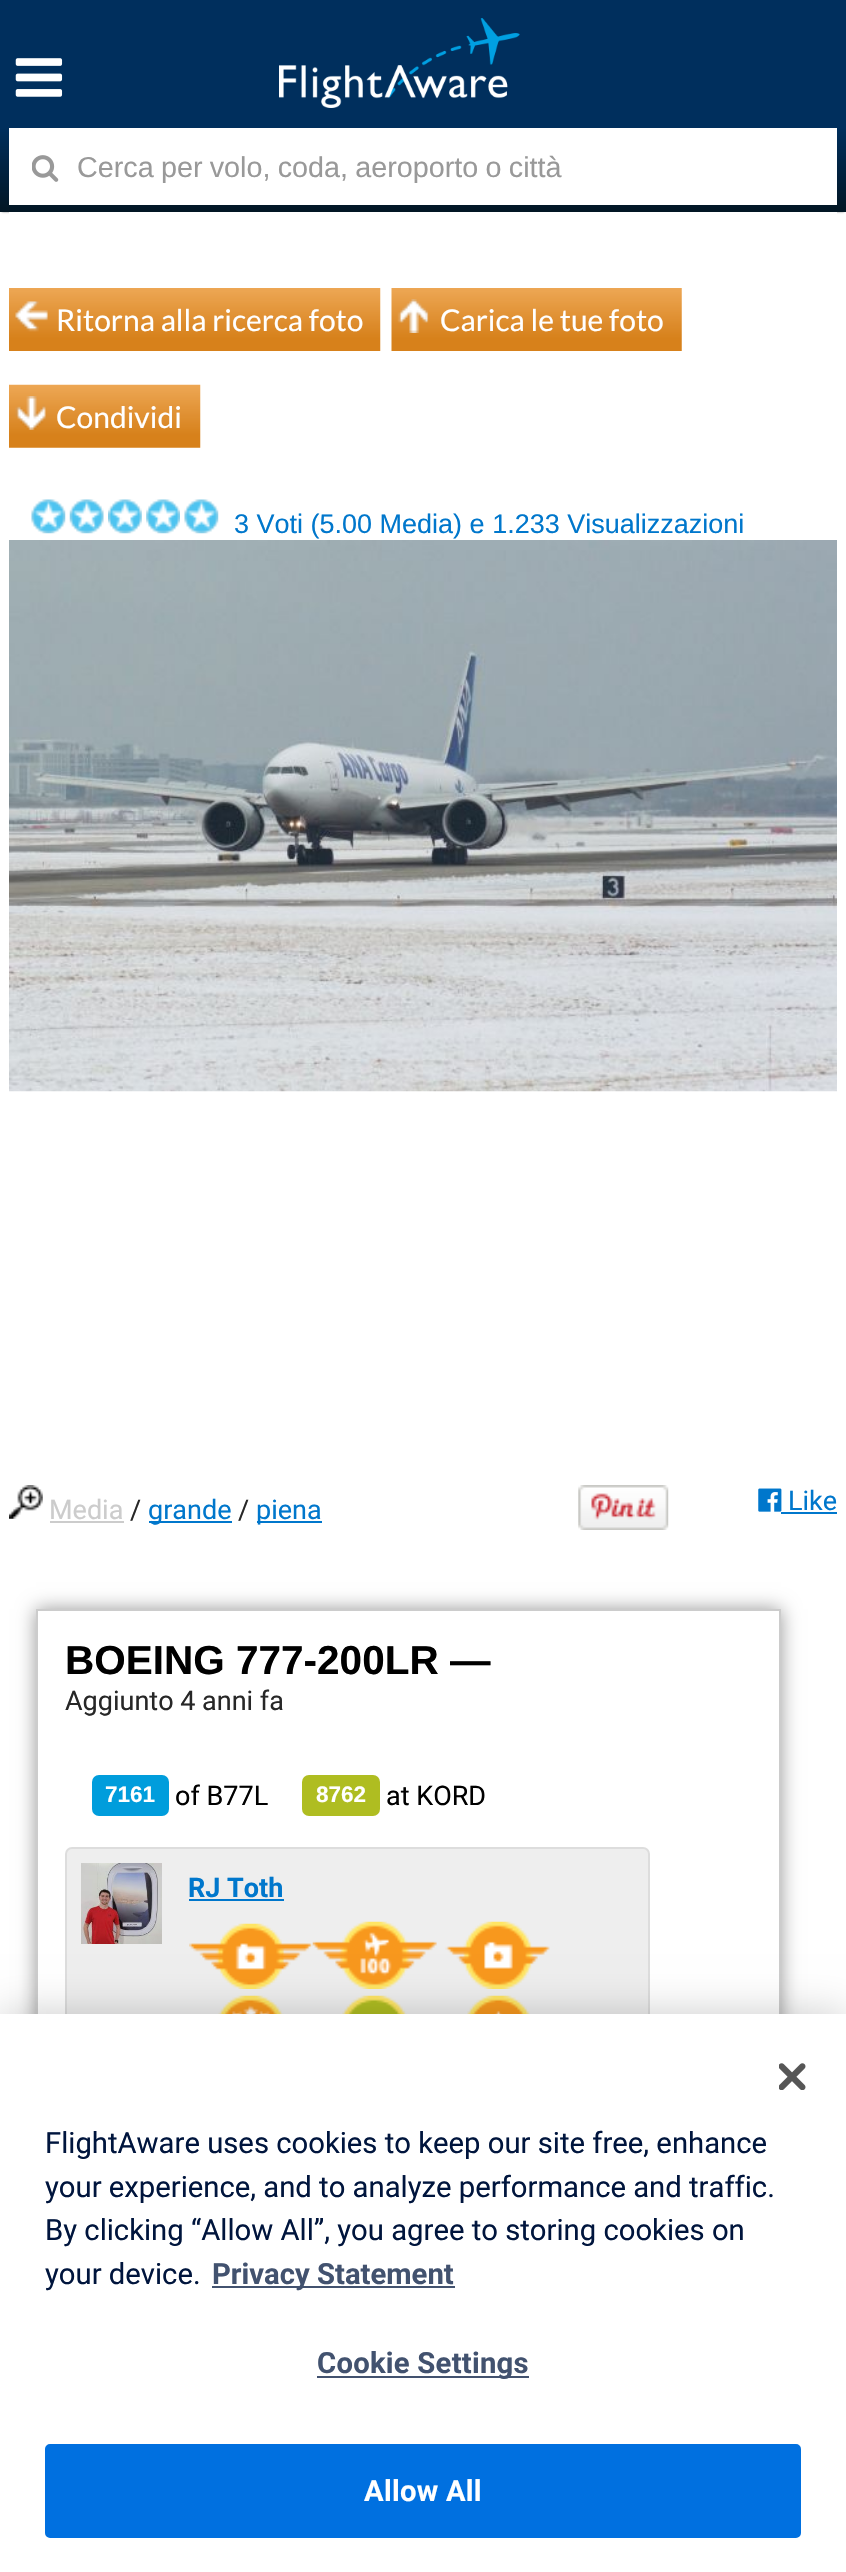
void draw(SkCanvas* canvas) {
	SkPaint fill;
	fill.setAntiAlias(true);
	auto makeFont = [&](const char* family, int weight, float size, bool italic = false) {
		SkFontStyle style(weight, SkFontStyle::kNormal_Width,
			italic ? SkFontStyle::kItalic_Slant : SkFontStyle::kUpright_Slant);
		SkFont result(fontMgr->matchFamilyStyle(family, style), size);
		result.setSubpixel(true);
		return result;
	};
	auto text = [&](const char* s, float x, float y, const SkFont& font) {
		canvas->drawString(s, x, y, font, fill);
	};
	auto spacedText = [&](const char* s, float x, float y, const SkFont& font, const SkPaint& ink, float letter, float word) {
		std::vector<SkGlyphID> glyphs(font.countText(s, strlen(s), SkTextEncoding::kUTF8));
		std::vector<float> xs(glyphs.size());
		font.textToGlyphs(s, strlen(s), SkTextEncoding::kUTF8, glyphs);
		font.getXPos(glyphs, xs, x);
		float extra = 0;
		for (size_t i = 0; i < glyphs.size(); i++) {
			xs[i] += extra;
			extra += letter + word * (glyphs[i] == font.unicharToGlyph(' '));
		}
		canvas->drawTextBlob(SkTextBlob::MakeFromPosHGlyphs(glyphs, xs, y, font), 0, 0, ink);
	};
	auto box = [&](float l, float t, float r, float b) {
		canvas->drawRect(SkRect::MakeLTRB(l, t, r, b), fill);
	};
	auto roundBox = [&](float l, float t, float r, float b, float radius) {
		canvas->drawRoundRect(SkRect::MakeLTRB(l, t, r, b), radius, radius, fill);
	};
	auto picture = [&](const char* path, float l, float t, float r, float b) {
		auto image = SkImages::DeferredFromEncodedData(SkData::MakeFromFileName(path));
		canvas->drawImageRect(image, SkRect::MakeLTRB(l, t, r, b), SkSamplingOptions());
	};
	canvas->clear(0xFFFFFFFF);
	fill.setColor(0xFF888888);
	fill.setMaskFilter(SkMaskFilter::MakeBlur(kNormal_SkBlurStyle, 1));
	canvas->drawRect(SkRect::MakeLTRB(2, 5, 844, 212), fill);
	fill.setMaskFilter(nullptr);
	{
		const SkColor colors[] = {0xFF002F5D, 0xFF002F5D, 0xFF021624};
		const float stops[] = {0, 0.6f, 1};
		const SkPoint ends[] = {{423, 0}, {423, 212}};
		fill.setShader(SkGradientShader::MakeLinear(ends, colors, stops, 3, SkTileMode::kClamp));
		fill.setAlpha(255);
	}
	box(0, 0, 846, 212);
	picture("image0.png", 15, 58, 63, 97);
	picture("image1.png", 279, 18, 520, 108);
	fill.setShader(nullptr);
	fill.setColor(0xFFFFFFFF);
	box(9, 128, 837, 205);
	picture("image2.png", 32, 155, 59, 182);
	box(9, 212, 837, 214);
	picture("image3.png", 9, 288, 381, 351);
	picture("image4.png", 15, 301, 48, 332);
	picture("image5.png", 391, 288, 682, 351);
	picture("image6.png", 397, 299, 429, 333);
	picture("image7.png", 9, 384, 201, 448);
	picture("image8.png", 15, 396, 46, 430);
	picture("image9.png", 31, 499, 66, 534);
	picture("image10.png", 69, 499, 104, 534);
	picture("image11.png", 108, 499, 142, 534);
	picture("image12.png", 146, 499, 180, 534);
	picture("image13.png", 184, 499, 219, 534);
	picture("image14.png", 9, 540, 837, 1092);
	picture("image15.png", 9, 1485, 43, 1519);
	fill.setColor(0xFFCCCCCC);
	box(50, 1521, 124, 1523);
	fill.setColor(0xFF0077CC);
	box(149, 1521, 232, 1523);
	box(257, 1521, 322, 1523);
	picture("image16.png", 578, 1485, 669, 1530);
	picture("image17.png", 758, 1488, 782, 1512);
	box(781, 1512, 837, 1514);
	canvas->save();
	canvas->clipPath(SkPathBuilder(SkPathFillType::kEvenOdd).moveTo(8, 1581).lineTo(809, 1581).lineTo(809, 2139).lineTo(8, 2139).close().moveTo(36, 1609).lineTo(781, 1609).lineTo(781, 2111).lineTo(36, 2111).close().detach(), true);
	fill.setColor(0xFF999999);
	fill.setMaskFilter(SkMaskFilter::MakeBlur(kNormal_SkBlurStyle, 9));
	canvas->drawRect(SkRect::MakeLTRB(36, 1609, 781, 2111), fill);
	fill.setMaskFilter(nullptr);
	canvas->restore();
	fill.setStyle(SkPaint::kStroke_Style);
	fill.setStrokeWidth(2);
	fill.setColor(0xFFCCCCCC);
	canvas->drawRect(SkRect::MakeLTRB(37, 1610, 780, 2110), fill);
	fill.setStyle(SkPaint::kFill_Style);
	fill.setColor(0xFF009DDC);
	roundBox(92, 1775, 169, 1816, 7);
	fill.setColor(0xFFAFBD21);
	roundBox(302, 1775, 380, 1816, 7);
	fill.setColor(0xFFEEEEEE);
	canvas->drawRoundRect(SkRect::MakeLTRB(66, 1848, 649, 2080), 6, 6, fill);
	fill.setStyle(SkPaint::kStroke_Style);
	fill.setColor(0xFFDDDDDD);
	canvas->drawRoundRect(SkRect::MakeLTRB(66, 1848, 649, 2080), 6, 6, fill);
	picture("image18.png", 81, 1863, 162, 1944);
	fill.setStyle(SkPaint::kFill_Style);
	fill.setColor(0xFF0077CC);
	box(189, 1899, 284, 1901);
	picture("image19.png", 189, 1923, 313, 1989);
	picture("image20.png", 312, 1921, 437, 1989);
	picture("image21.png", 445, 1921, 550, 1989);
	picture("image22.png", 218, 1995, 284, 2014);
	picture("image23.png", 342, 1995, 407, 2014);
	picture("image24.png", 467, 1995, 530, 2014);
	fill.setColor(0x33000000);
	fill.setMaskFilter(SkMaskFilter::MakeBlur(kNormal_SkBlurStyle, 20));
	canvas->drawRect(SkRect::MakeLTRB(0, 2014, 846, 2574), fill);
	fill.setMaskFilter(nullptr);
	fill.setColor(0xFFFFFFFF);
	box(0, 2014, 846, 2572);
	picture("image25.png", 779, 2063, 806, 2090);
	fill.setColor(0xFF42526F);
	box(212, 2286, 455, 2288);
	box(317, 2376, 529, 2378);
	fill.setColor(0xFF0070E0);
	canvas->drawRoundRect(SkRect::MakeLTRB(46, 2445, 800, 2537), 4, 4, fill);
	fill.setStyle(SkPaint::kStroke_Style);
	canvas->drawRoundRect(SkRect::MakeLTRB(46, 2445, 800, 2537), 4, 4, fill);
	auto font1 = makeFont("Liberation Sans", 400, 28.75f);
	fill.setStyle(SkPaint::kFill_Style);
	fill.setColor(0xFF999999);
	spacedText("Cerca per volo, coda, aeroporto o città", 77, 177, font1, fill, 0, -0.75f);
	auto font2 = makeFont("Lato", 400, 30);
	fill.setColor(0xFFFFFFFF);
	text("Ritorna alla ricerca foto", 56, 331, font2);
	text("Carica le tue foto", 440, 331, font2);
	text("Condividi", 56, 428, font2);
	auto font3 = makeFont("Liberation Sans", 400, 27);
	fill.setColor(0xFF0077CC);
	text("3 Voti (5.00 Media) e 1.233 Visualizzazioni", 234, 533, font3);
	auto font4 = makeFont("Roboto", 400, 27);
	fill.setColor(0xFFCCCCCC);
	text("Media", 49, 1519, font4);
	fill.setColor(0xFF272727);
	text("/", 130, 1519, font4);
	fill.setColor(0xFF0077CC);
	text("grande", 148, 1519, font4);
	fill.setColor(0xFF272727);
	text("/", 238, 1519, font4);
	fill.setColor(0xFF0077CC);
	text("piena", 256, 1519, font4);
	text("Like", 788, 1510, font4);
	auto font5 = makeFont("Liberation Sans", 700, 40.5f);
	fill.setColor(0xFF000000);
	text("BOEING 777-200LR —", 65, 1674, font5);
	fill.setColor(0xFF272727);
	text("Aggiunto 4 anni fa", 65, 1710, font4);
	auto font6 = makeFont("Liberation Sans", 700, 22.5f);
	fill.setColor(0xFFFFFFFF);
	text("7161", 105, 1802, font6);
	fill.setColor(0xFF000000);
	text("of B77L", 175, 1805, font4);
	fill.setColor(0xFFFFFFFF);
	text("8762", 316, 1802, font6);
	fill.setColor(0xFF000000);
	text("at KORD", 386, 1805, font4);
	auto font7 = makeFont("Roboto", 700, 27);
	fill.setColor(0xFF0077CC);
	text("RJ Toth", 188, 1897, font7);
	auto font8 = makeFont("Roboto", 400, 29.25f);
	fill.setColor(0xFF00153D);
	text("FlightAware uses cookies to keep our site free, enhance", 45, 2153, font8);
	text("your experience, and to analyze performance and traffic.", 45, 2197, font8);
	text("By clicking “Allow All”, you agree to storing cookies on", 45, 2240, font8);
	text("your device.", 45, 2284, font8);
	auto font9 = makeFont("Roboto", 700, 29.25f);
	fill.setColor(0xFF42526F);
	text("Privacy Statement", 212, 2284, font9);
	spacedText("Cookie Settings", 317, 2373, font9, fill, 0.25f, 0);
	fill.setColor(0xFFFFFFFF);
	spacedText("Allow All", 364, 2501, font9, fill, 0.25f, 0);
}
